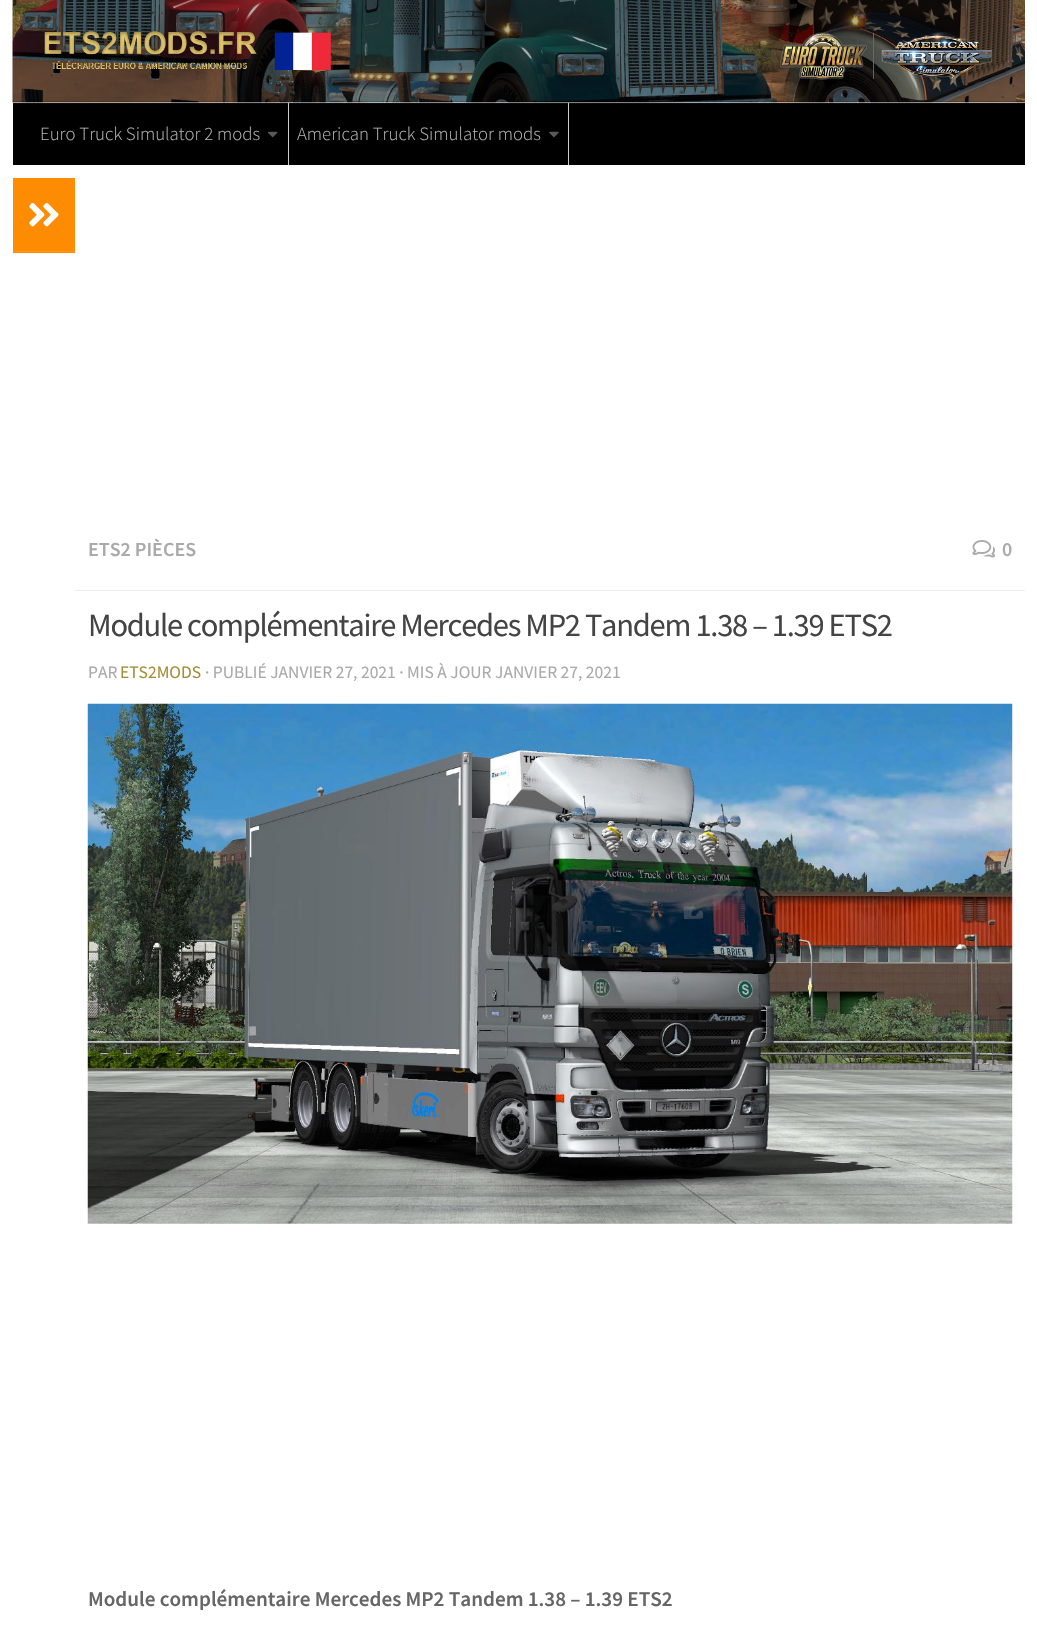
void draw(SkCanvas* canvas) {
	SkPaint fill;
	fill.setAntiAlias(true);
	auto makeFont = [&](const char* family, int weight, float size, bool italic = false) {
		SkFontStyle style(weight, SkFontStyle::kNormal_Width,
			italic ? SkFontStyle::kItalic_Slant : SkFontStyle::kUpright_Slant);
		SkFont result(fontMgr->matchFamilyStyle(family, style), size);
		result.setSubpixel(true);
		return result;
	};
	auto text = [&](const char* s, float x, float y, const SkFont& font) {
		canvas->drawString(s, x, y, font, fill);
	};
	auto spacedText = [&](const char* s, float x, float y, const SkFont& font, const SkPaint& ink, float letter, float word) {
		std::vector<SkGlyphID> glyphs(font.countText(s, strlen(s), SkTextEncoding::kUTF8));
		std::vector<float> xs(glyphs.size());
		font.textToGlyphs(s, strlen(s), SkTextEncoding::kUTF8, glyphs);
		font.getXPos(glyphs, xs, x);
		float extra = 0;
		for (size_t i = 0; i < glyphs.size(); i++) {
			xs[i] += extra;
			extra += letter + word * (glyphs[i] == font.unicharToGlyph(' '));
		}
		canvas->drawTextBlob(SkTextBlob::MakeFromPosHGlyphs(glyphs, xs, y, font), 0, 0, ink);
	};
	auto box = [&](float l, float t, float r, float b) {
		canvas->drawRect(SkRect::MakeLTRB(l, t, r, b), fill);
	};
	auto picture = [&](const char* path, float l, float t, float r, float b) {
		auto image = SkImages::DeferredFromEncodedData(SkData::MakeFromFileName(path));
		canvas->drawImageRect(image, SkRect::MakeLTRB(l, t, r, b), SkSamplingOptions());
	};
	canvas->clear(0xFFFFFFFF);
	picture("image0.png", 12, 0, 1025, 103);
	fill.setColor(0x33000000);
	box(13, 101, 1025, 102);
	fill.setColor(0xFF000000);
	box(13, 104, 1025, 165);
	fill.setColor(0xFF0D0D0D);
	box(13, 103, 1025, 104);
	fill.setColor(0xFFCCCCCC);
	box(288, 103, 289, 165);
	picture("image1.png", 268, 131, 278, 138);
	box(568, 103, 569, 165);
	picture("image2.png", 549, 131, 559, 138);
	fill.setColor(0xFFFD8C02);
	box(13, 178, 75, 253);
	fill.setColor(0xFFFD981B);
	box(13, 251, 75, 252);
	picture("image3.png", 29, 203, 59, 227);
	fill.setColor(0xFFEEEEEE);
	box(75, 590, 1025, 591);
	picture("image4.png", 972, 540, 995, 558);
	picture("image5.png", 87, 703, 1013, 1224);
	auto font1 = makeFont("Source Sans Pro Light", 300, 18.75f);
	fill.setColor(0xFFB3B3B3);
	text("Euro Truck Simulator 2 mods", 40, 140, font1);
	text("American Truck Simulator mods", 297, 140, font1);
	auto font2 = makeFont("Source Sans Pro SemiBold", 600, 20);
	fill.setColor(0xFFAAAAAA);
	text("ETS2 PIÈCES", 88, 556, font2);
	text("0", 1002, 556, font2);
	auto font3 = makeFont("Source Sans Pro", 400, 32.5f);
	fill.setColor(0xFF444444);
	spacedText("Module complémentaire Mercedes MP2 Tandem 1.38 – 1.39 ETS2", 88, 636, font3, fill, -1.25f, 0);
	auto font4 = makeFont("Source Sans Pro", 400, 17.5f);
	fill.setColor(0xFFAAAAAA);
	text("PAR", 88, 678, font4);
	fill.setColor(0xFFA58C38);
	text("ETS2MODS", 120, 678, font4);
	fill.setColor(0xFFAAAAAA);
	text("· PUBLIÉ JANVIER 27, 2021 · MIS À JOUR JANVIER 27, 2021", 205, 678, font4);
	auto font5 = makeFont("Source Sans Pro SemiBold", 600, 21.15f);
	fill.setColor(0xFF666666);
	text("Module complémentaire Mercedes MP2 Tandem 1.38 – 1.39 ETS2", 88, 1606, font5);
}
